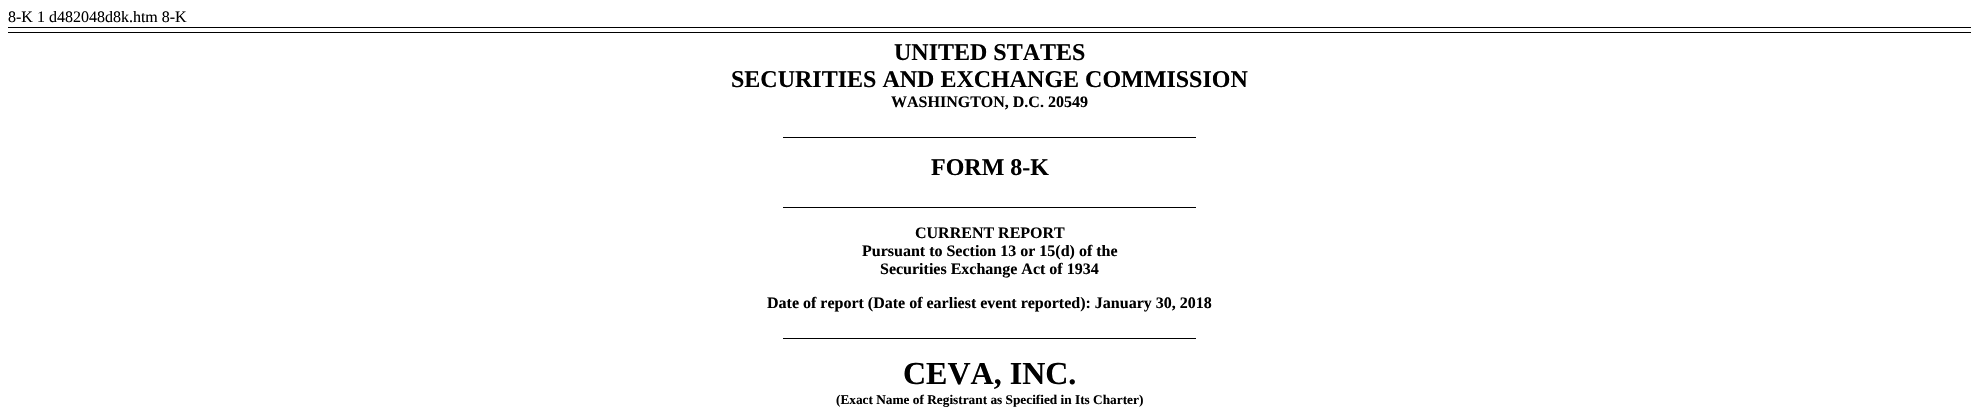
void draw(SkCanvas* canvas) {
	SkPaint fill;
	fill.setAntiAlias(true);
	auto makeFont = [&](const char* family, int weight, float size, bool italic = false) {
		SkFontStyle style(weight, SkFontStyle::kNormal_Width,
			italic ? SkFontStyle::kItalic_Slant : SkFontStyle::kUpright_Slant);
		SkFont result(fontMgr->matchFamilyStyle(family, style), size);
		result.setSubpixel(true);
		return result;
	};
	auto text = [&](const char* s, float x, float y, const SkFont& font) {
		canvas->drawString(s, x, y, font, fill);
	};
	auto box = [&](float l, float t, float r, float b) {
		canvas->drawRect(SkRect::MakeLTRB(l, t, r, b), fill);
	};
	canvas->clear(0xFFFFFFFF);
	fill.setColor(0xFF000000);
	box(8, 27, 1971, 28);
	box(8, 32, 1971, 33);
	box(783, 137, 1196, 138);
	box(783, 207, 1196, 208);
	box(783, 338, 1196, 339);
	auto font1 = makeFont("Liberation Serif", 400, 16);
	text("8-K 1 d482048d8k.htm 8-K", 8, 22, font1);
	auto font2 = makeFont("Liberation Serif", 700, 24);
	text("UNITED STATES", 894, 60, font2);
	text("SECURITIES AND EXCHANGE COMMISSION", 731, 87, font2);
	auto font3 = makeFont("Liberation Serif", 700, 16);
	text("WASHINGTON, D.C. 20549", 891, 107, font3);
	text("FORM 8-K", 931, 175, font2);
	text("CURRENT REPORT", 915, 238, font3);
	text("Pursuant to Section 13 or 15(d) of the", 862, 256, font3);
	text("Securities Exchange Act of 1934", 880, 274, font3);
	text("Date of report (Date of earliest event reported): January 30, 2018", 767, 308, font3);
	auto font4 = makeFont("Liberation Serif", 700, 32);
	text("CEVA, INC.", 903, 384, font4);
	auto font5 = makeFont("Liberation Serif", 700, 13.3f);
	text("(Exact Name of Registrant as Specified in Its Charter)", 836, 404, font5);
}
